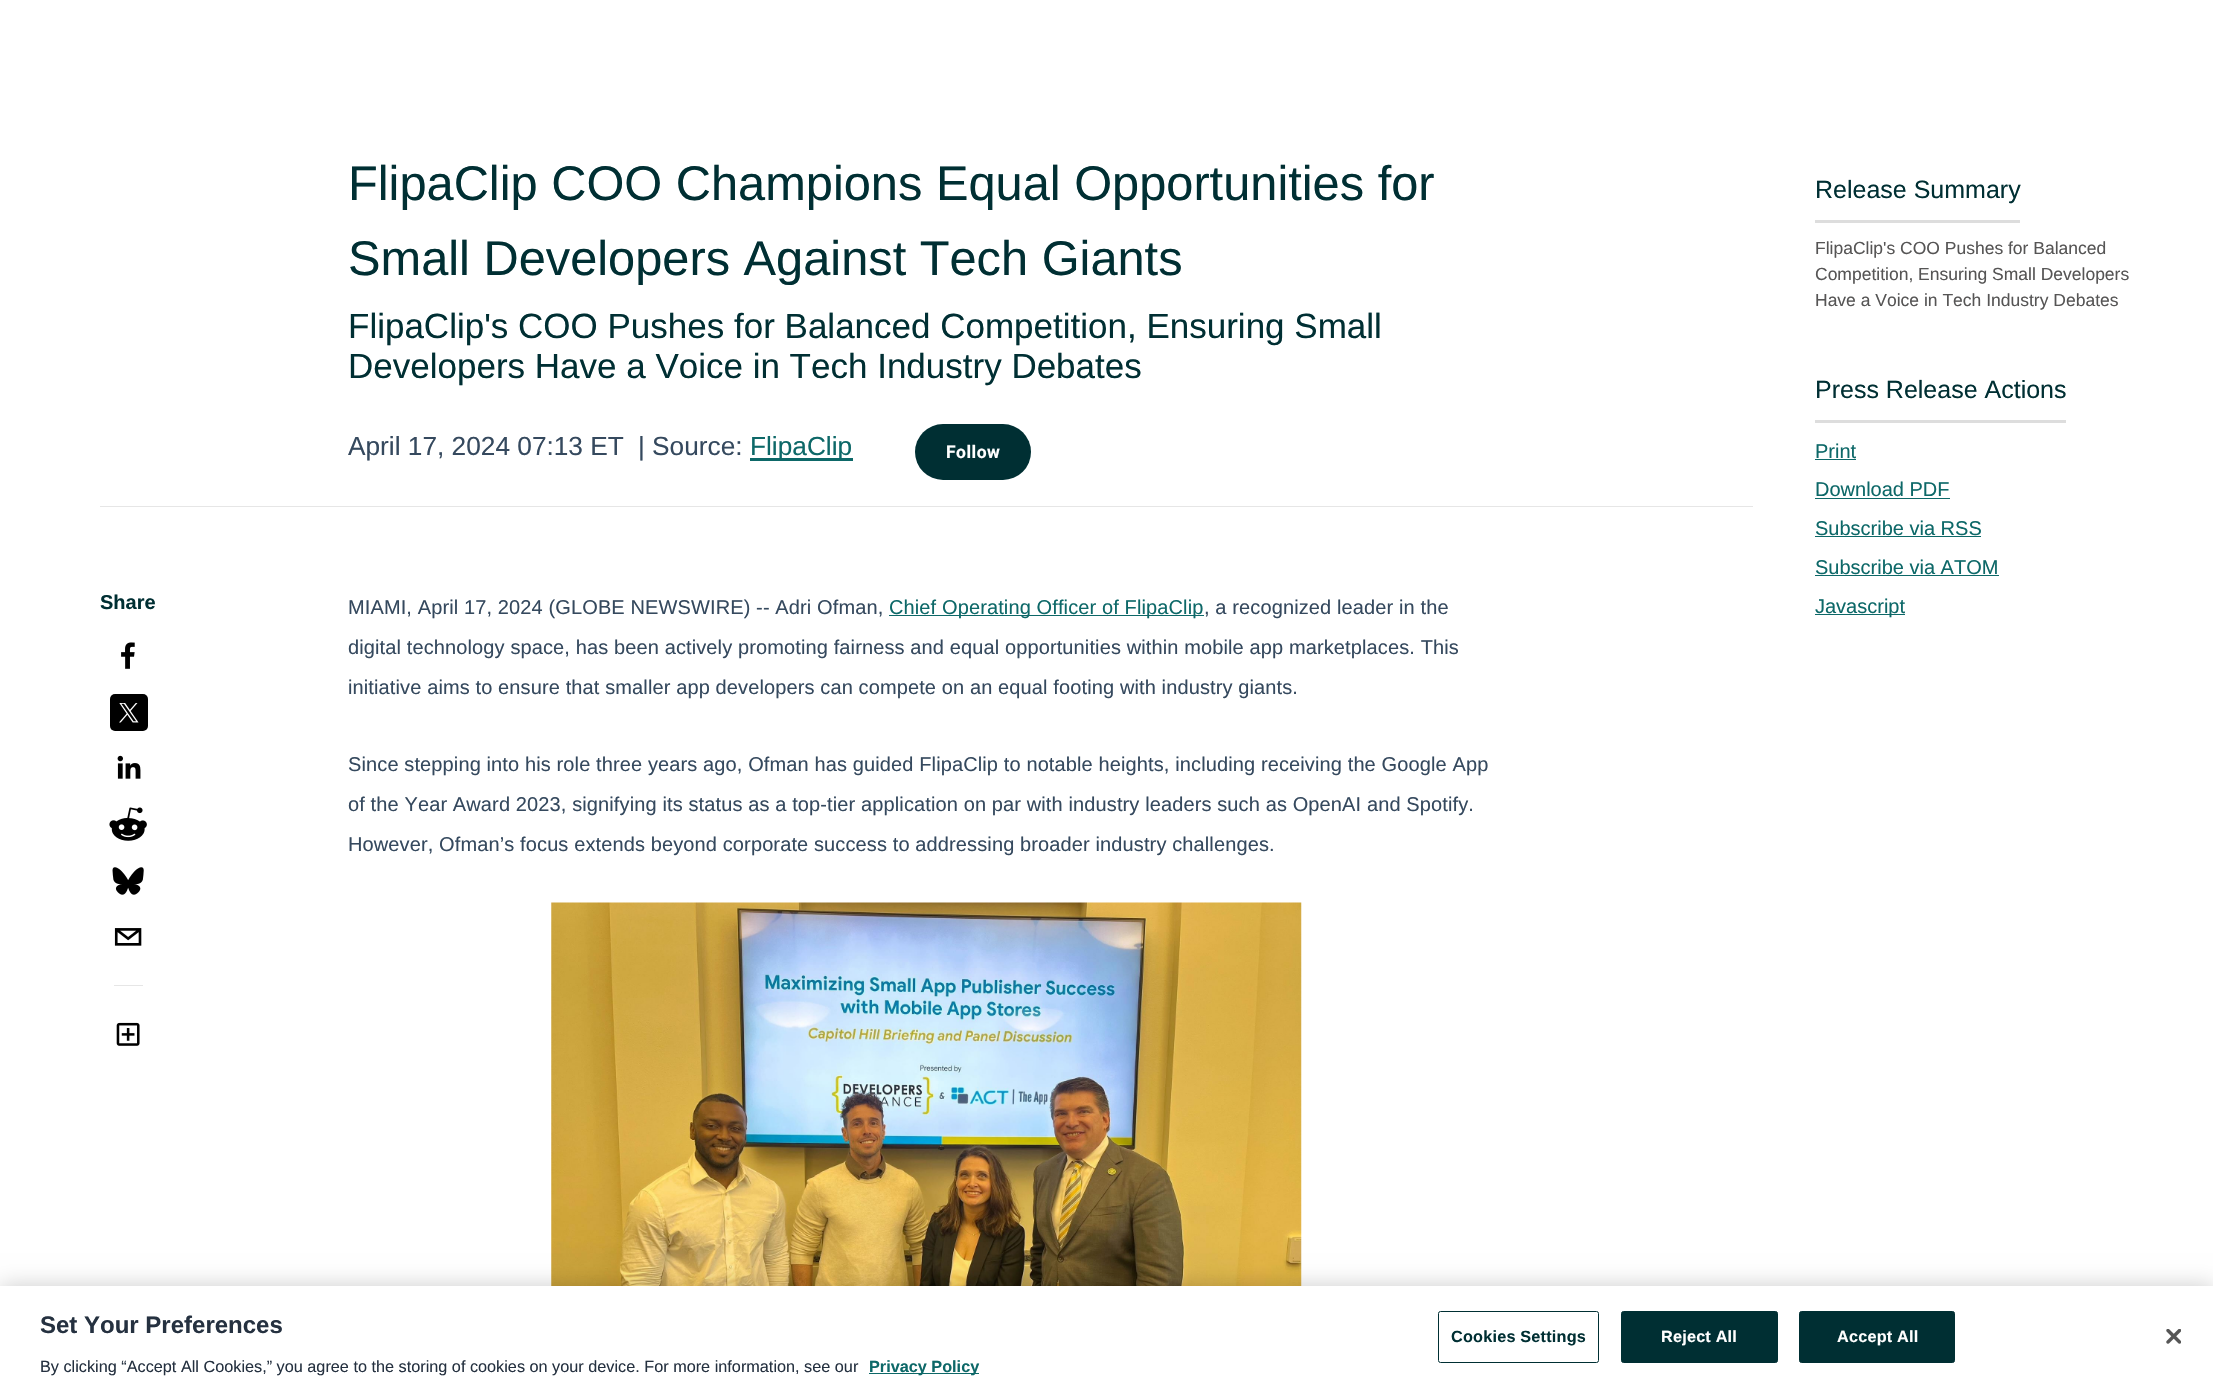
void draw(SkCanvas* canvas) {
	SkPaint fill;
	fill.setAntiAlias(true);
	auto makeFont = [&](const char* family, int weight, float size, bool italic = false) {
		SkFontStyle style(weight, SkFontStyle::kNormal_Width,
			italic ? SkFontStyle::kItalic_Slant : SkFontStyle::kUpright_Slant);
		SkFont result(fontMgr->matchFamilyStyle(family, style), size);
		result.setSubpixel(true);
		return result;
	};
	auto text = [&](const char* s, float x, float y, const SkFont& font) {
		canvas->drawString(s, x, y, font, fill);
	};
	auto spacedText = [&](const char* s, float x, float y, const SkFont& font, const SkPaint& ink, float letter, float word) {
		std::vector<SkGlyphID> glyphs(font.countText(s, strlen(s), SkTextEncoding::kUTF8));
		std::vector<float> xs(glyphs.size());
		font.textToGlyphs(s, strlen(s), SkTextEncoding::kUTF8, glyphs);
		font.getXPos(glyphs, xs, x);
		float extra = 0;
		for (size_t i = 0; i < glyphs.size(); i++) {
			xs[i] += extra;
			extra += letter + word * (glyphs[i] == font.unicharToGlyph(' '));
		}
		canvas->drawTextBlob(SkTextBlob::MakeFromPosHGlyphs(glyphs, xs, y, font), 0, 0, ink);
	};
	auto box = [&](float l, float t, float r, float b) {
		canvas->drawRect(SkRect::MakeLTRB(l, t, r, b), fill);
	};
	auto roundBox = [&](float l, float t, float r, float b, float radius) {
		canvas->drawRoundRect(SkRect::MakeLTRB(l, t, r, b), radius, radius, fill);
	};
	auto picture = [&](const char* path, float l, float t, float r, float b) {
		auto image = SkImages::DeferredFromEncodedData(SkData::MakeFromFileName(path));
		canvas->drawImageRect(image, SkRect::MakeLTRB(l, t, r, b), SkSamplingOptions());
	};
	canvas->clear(0xFFFFFFFF);
	fill.setColor(0xFF0D6868);
	box(750, 458, 853, 461);
	fill.setColor(0xFF002F33);
	roundBox(915, 424, 1031, 480, 28);
	fill.setColor(0xFFE6E6E6);
	box(100, 506, 1753, 507);
	picture("image0.png", 121, 642, 135, 669);
	fill.setColor(0xFF000000);
	roundBox(110, 694, 148, 731, 5);
	picture("image1.png", 119, 703, 139, 723);
	picture("image2.png", 117, 755, 141, 779);
	picture("image3.png", 109, 807, 147, 841);
	picture("image4.png", 112, 867, 144, 895);
	picture("image5.png", 114, 928, 142, 946);
	fill.setColor(0xFFE6E6E6);
	box(114, 985, 143, 986);
	picture("image6.png", 116, 1022, 140, 1046);
	fill.setColor(0xFF0D6868);
	box(889, 615, 1204, 616);
	picture("image7.png", 551, 902, 1302, 1286);
	fill.setColor(0xFFDDDDDD);
	box(1815, 220, 2020, 223);
	box(1815, 420, 2066, 423);
	fill.setColor(0xFF0D6868);
	box(1815, 459, 1856, 460);
	box(1815, 498, 1950, 499);
	box(1815, 536, 1981, 537);
	box(1815, 575, 1999, 576);
	box(1815, 614, 1905, 615);
	fill.setColor(0x33000000);
	fill.setMaskFilter(SkMaskFilter::MakeBlur(kNormal_SkBlurStyle, 11));
	canvas->drawRect(SkRect::MakeLTRB(0, 1286, 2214, 1391), fill);
	fill.setMaskFilter(nullptr);
	fill.setColor(0xFFFFFFFF);
	box(0, 1286, 2213, 1391);
	fill.setColor(0xFF0D6868);
	box(869, 1373, 979, 1374);
	fill.setStyle(SkPaint::kStroke_Style);
	fill.setStrokeWidth(1);
	fill.setColor(0xFF002F33);
	canvas->drawRoundRect(SkRect::MakeLTRB(1438.5f, 1311.5f, 1598.5f, 1362.5f), 2, 2, fill);
	fill.setStyle(SkPaint::kFill_Style);
	canvas->drawRoundRect(SkRect::MakeLTRB(1621.5f, 1311.5f, 1777.5f, 1362.5f), 2, 2, fill);
	fill.setStyle(SkPaint::kStroke_Style);
	canvas->drawRoundRect(SkRect::MakeLTRB(1621.5f, 1311.5f, 1777.5f, 1362.5f), 2, 2, fill);
	fill.setStyle(SkPaint::kFill_Style);
	canvas->drawRoundRect(SkRect::MakeLTRB(1799.5f, 1311.5f, 1954.5f, 1362.5f), 2, 2, fill);
	fill.setStyle(SkPaint::kStroke_Style);
	canvas->drawRoundRect(SkRect::MakeLTRB(1799.5f, 1311.5f, 1954.5f, 1362.5f), 2, 2, fill);
	picture("image8.png", 2166, 1329, 2181, 1344);
	auto font1 = makeFont("Liberation Sans", 400, 48.75f);
	fill.setStyle(SkPaint::kFill_Style);
	text("FlipaClip COO Champions Equal Opportunities for", 348, 200, font1);
	text("Small Developers Against Tech Giants", 348, 275, font1);
	auto font2 = makeFont("Liberation Sans", 400, 35);
	text("FlipaClip's COO Pushes for Balanced Competition, Ensuring Small", 348, 338, font2);
	text("Developers Have a Voice in Tech Industry Debates", 348, 378, font2);
	auto font3 = makeFont("Liberation Sans", 400, 26.25f);
	fill.setColor(0xFF35495E);
	text("April 17, 2024 07:13 ET", 348, 455, font3);
	text("| Source:", 638, 455, font3);
	fill.setColor(0xFF0D6868);
	text("FlipaClip", 750, 455, font3);
	auto font4 = makeFont("Roboto", 700, 17.5f);
	fill.setColor(0xFFFFFFFF);
	spacedText("Follow", 946, 458, font4, fill, 0.5f, 0);
	auto font5 = makeFont("Liberation Sans", 700, 20);
	fill.setColor(0xFF002F33);
	text("Share", 100, 609, font5);
	auto font6 = makeFont("Liberation Sans", 400, 20);
	fill.setColor(0xFF35495E);
	spacedText("MIAMI, April 17, 2024 (GLOBE NEWSWIRE) -- Adri Ofman,", 348, 614, font6, fill, 0.12f, 0);
	fill.setColor(0xFF0D6868);
	spacedText("Chief Operating Officer of FlipaClip", 889, 614, font6, fill, 0.12f, 0);
	fill.setColor(0xFF35495E);
	spacedText(", a recognized leader in the", 1204, 614, font6, fill, 0.12f, 0);
	spacedText("digital technology space, has been actively promoting fairness and equal opportunities within mobile app marketplaces. This", 348, 654, font6, fill, 0.12f, 0);
	spacedText("initiative aims to ensure that smaller app developers can compete on an equal footing with industry giants.", 348, 694, font6, fill, 0.12f, 0);
	spacedText("Since stepping into his role three years ago, Ofman has guided FlipaClip to notable heights, including receiving the Google App", 348, 771, font6, fill, 0.12f, 0);
	spacedText("of the Year Award 2023, signifying its status as a top-tier application on par with industry leaders such as OpenAI and Spotify.", 348, 811, font6, fill, 0.12f, 0);
	spacedText("However, Ofman’s focus extends beyond corporate success to addressing broader industry challenges.", 348, 851, font6, fill, 0.12f, 0);
	auto font7 = makeFont("Liberation Sans", 400, 25);
	fill.setColor(0xFF002F33);
	text("Release Summary", 1815, 198, font7);
	auto font8 = makeFont("Liberation Sans", 400, 17.5f);
	fill.setColor(0xFF565555);
	text("FlipaClip's COO Pushes for Balanced", 1815, 254, font8);
	text("Competition, Ensuring Small Developers", 1815, 280, font8);
	text("Have a Voice in Tech Industry Debates", 1815, 306, font8);
	fill.setColor(0xFF002F33);
	text("Press Release Actions", 1815, 398, font7);
	fill.setColor(0xFF0D6868);
	text("Print", 1815, 458, font6);
	text("Download PDF", 1815, 496, font6);
	text("Subscribe via RSS", 1815, 535, font6);
	text("Subscribe via ATOM", 1815, 574, font6);
	text("Javascript", 1815, 613, font6);
	auto font9 = makeFont("Liberation Sans", 700, 24);
	fill.setColor(0xFF253140);
	text("Set Your Preferences", 40, 1333, font9);
	auto font10 = makeFont("Liberation Sans", 400, 16.25f);
	text("By clicking “Accept All Cookies,” you agree to the storing of cookies on your device. For more information, see our", 40, 1372, font10);
	auto font11 = makeFont("Liberation Sans", 700, 16.25f);
	fill.setColor(0xFF0D6868);
	text("Privacy Policy", 869, 1372, font11);
	fill.setColor(0xFF002F33);
	spacedText("Cookies Settings", 1451, 1342, font11, fill, 0.2f, 0);
	fill.setColor(0xFFFFFFFF);
	spacedText("Reject All", 1661, 1342, font11, fill, 0.2f, 0);
	spacedText("Accept All", 1837, 1342, font11, fill, 0.2f, 0);
}
